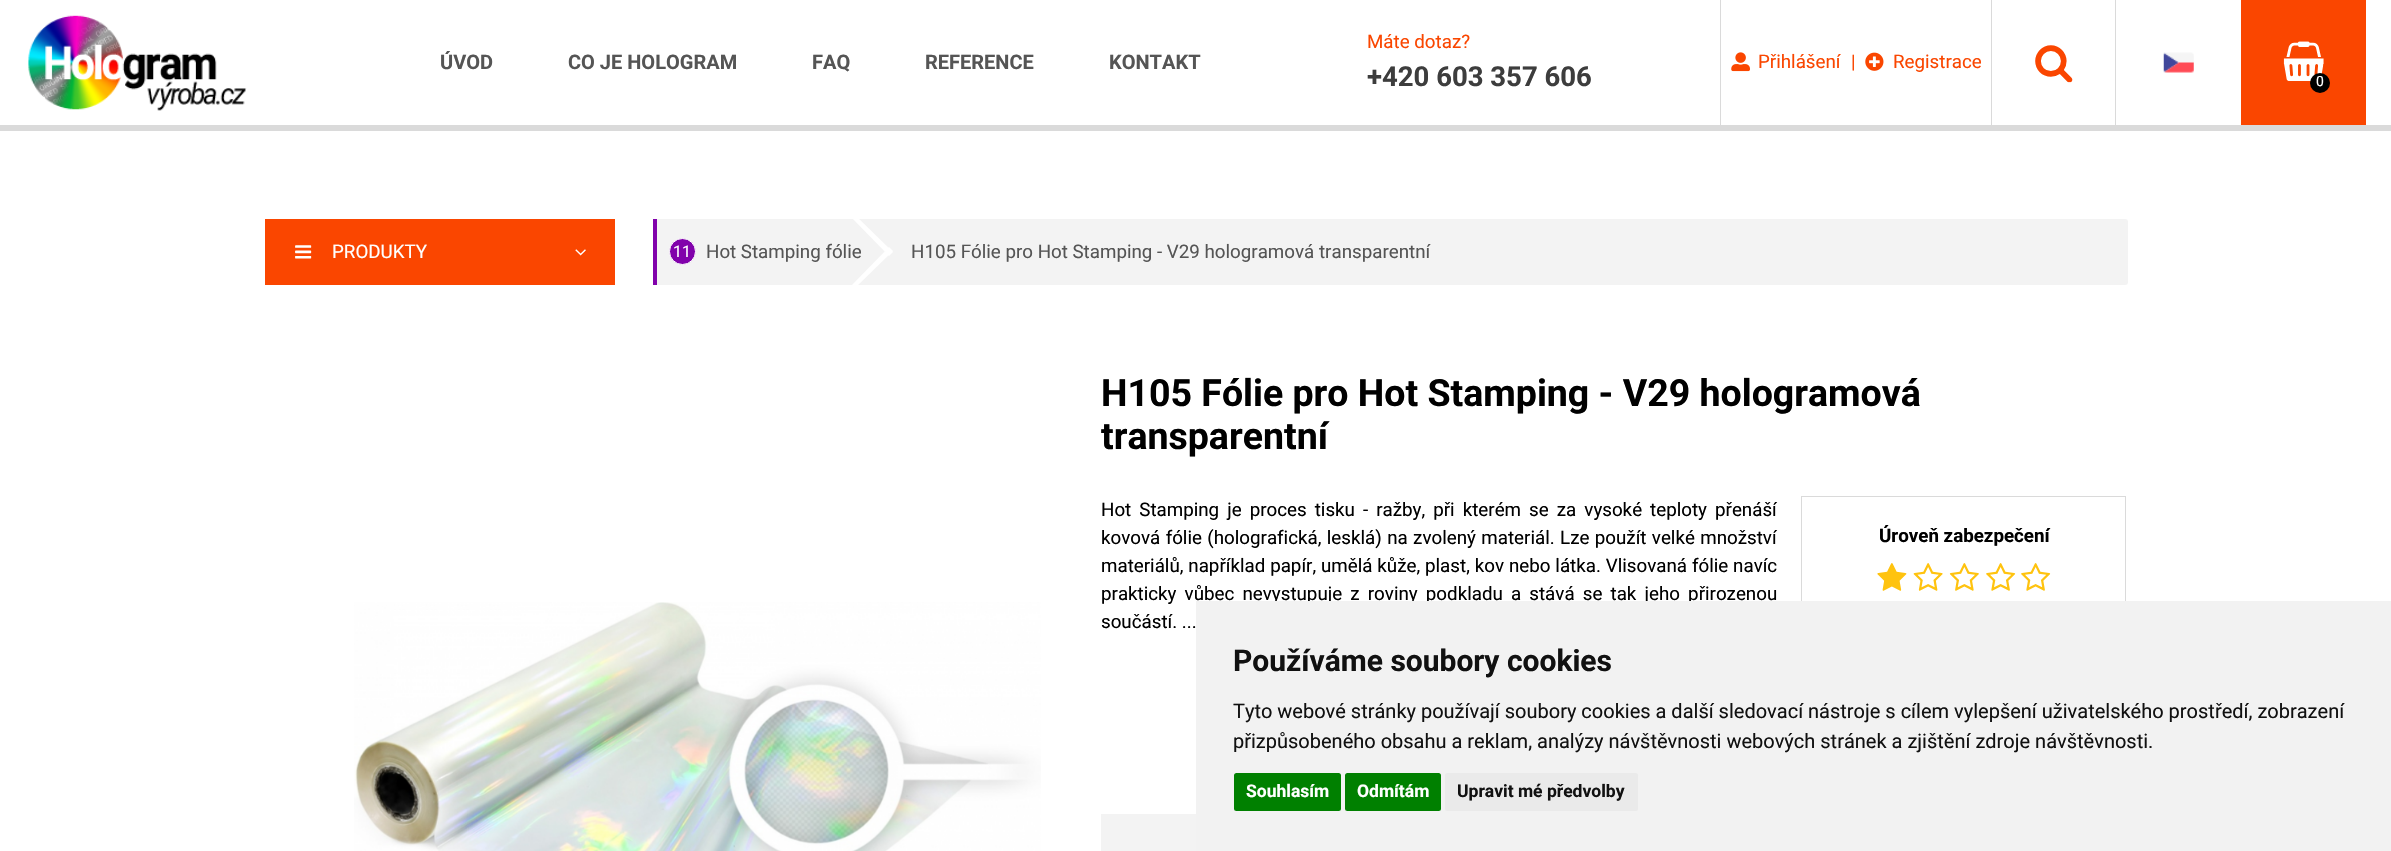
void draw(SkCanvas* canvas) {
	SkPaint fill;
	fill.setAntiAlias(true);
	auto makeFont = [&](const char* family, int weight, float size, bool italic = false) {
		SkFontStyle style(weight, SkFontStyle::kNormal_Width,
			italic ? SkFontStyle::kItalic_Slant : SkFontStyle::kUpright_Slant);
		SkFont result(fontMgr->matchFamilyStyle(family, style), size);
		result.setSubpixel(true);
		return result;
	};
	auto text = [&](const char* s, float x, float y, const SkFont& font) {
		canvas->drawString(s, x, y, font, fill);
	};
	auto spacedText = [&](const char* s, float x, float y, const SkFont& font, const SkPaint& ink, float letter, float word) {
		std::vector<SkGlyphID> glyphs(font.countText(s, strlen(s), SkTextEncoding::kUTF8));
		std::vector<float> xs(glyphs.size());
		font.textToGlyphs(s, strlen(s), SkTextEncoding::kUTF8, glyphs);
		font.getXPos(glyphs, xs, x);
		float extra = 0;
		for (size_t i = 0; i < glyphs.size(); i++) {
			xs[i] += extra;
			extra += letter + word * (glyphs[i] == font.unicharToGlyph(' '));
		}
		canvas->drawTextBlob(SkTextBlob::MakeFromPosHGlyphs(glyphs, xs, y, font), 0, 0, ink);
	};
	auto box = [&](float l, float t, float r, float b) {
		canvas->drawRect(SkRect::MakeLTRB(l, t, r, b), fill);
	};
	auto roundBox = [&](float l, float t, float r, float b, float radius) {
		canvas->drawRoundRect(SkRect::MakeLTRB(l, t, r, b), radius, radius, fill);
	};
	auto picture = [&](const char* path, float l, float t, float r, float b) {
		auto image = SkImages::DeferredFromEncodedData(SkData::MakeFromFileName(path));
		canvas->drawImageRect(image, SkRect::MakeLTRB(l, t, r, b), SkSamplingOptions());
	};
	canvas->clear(0xFFFFFFFF);
	fill.setColor(0xFFDADADA);
	box(0, 125, 2391, 131);
	picture("image0.png", 28, 15, 247, 111);
	box(1720, 0, 1721, 125);
	picture("image1.png", 1731, 52, 1750, 72);
	picture("image2.png", 1865, 52, 1884, 71);
	box(2115, 0, 2116, 125);
	box(1991, 0, 1992, 125);
	picture("image3.png", 2035, 45, 2073, 83);
	picture("image4.png", 2163, 52, 2194, 73);
	fill.setColor(0xFFFA4600);
	box(2241, 0, 2366, 125);
	picture("image5.png", 2283, 41, 2324, 81);
	fill.setColor(0xFF000000);
	canvas->drawCircle(2320, 83, 10, fill);
	fill.setColor(0xFFFA4600);
	box(265, 219, 615, 285);
	picture("image6.png", 295, 245, 312, 259);
	picture("image7.png", 575, 249, 586, 256);
	fill.setColor(0xFFF3F3F3);
	roundBox(653, 219, 2128, 285, 3);
	fill.setColor(0xFF8102AB);
	box(653, 219, 657, 285);
	canvas->drawCircle(682.5f, 251.5f, 13, fill);
	fill.setStyle(SkPaint::kStroke_Style);
	fill.setStrokeWidth(1);
	fill.setColor(0xFFFFFFFF);
	canvas->drawCircle(682.5f, 251.5f, 13, fill);
	fill.setColor(0xFFDADADA);
	canvas->drawRect(SkRect::MakeLTRB(1801.5f, 496.5f, 2125.5f, 623.5f), fill);
	picture("image8.png", 1877, 563, 1907, 591);
	picture("image9.png", 1913, 563, 1943, 591);
	picture("image10.png", 1949, 563, 1979, 591);
	picture("image11.png", 1986, 563, 2016, 591);
	picture("image12.png", 2021, 563, 2051, 591);
	fill.setStyle(SkPaint::kFill_Style);
	fill.setColor(0xFFF3F3F3);
	box(1101, 814, 1196, 851);
	picture("image13.png", 354, 602, 1041, 851);
	auto font1 = makeFont("Roboto", 700, 20);
	fill.setColor(0xFF555555);
	text("ÚVOD", 440, 69, font1);
	text("CO JE HOLOGRAM", 568, 69, font1);
	text("FAQ", 812, 69, font1);
	text("REFERENCE", 925, 69, font1);
	text("KONTAKT", 1109, 69, font1);
	auto font2 = makeFont("Roboto", 400, 18.75f);
	fill.setColor(0xFFFA4600);
	text("Máte dotaz?", 1367, 48, font2);
	auto font3 = makeFont("Roboto", 700, 27.5f);
	fill.setColor(0xFF3D3D3D);
	text("+420 603 357 606", 1367, 86, font3);
	fill.setColor(0xFFFA4600);
	text("Přihlášení", 1758, 68, font2);
	text("|", 1851, 68, font2);
	text("Registrace", 1893, 68, font2);
	auto font4 = makeFont("Roboto", 400, 14);
	fill.setColor(0xFFFFFFFF);
	text("0", 2316, 86, font4);
	text("PRODUKTY", 332, 258, font2);
	auto font5 = makeFont("Roboto", 400, 16);
	text("11", 673, 257, font5);
	fill.setColor(0xFF555555);
	text("Hot Stamping fólie", 706, 258, font2);
	fill.setColor(0xFFFFFFFF);
	canvas->drawPath(SkPathBuilder().moveTo(889, 247).lineTo(893, 251).lineTo(853, 290).lineTo(850, 287).close().detach(), fill);
	canvas->drawPath(SkPathBuilder().moveTo(850, 216).lineTo(853, 213).lineTo(893, 252).lineTo(889, 256).close().detach(), fill);
	fill.setColor(0xFF555555);
	text("H105 Fólie pro Hot Stamping - V29 hologramová transparentní", 911, 258, font2);
	auto font6 = makeFont("Roboto", 700, 37.5f);
	fill.setColor(0xFF000000);
	text("H105 Fólie pro Hot Stamping - V29 hologramová", 1101, 406, font6);
	canvas->save();
	canvas->clipRect(SkRect::MakeLTRB(1101, 373, 2126, 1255));
	text("transparentní", 1101, 449, font6);
	canvas->restore();
	spacedText("Hot Stamping je proces tisku - ražby, při kterém se za vysoké teploty přenáší", 1101, 516, font2, fill, 0, 3.4f);
	spacedText("kovová fólie (holografická, lesklá) na zvolený materiál. Lze použít velké množství", 1101, 544, font2, fill, 0, 0.75f);
	spacedText("materiálů, například papír, umělá kůže, plast, kov nebo látka. Vlisovaná fólie navíc", 1101, 572, font2, fill, 0, 0.25f);
	spacedText("prakticky vůbec nevystupuje z roviny podkladu a stává se tak jeho přirozenou", 1101, 600, font2, fill, 0, 3.5f);
	text("součástí. ...", 1101, 628, font2);
	auto font7 = makeFont("Roboto", 700, 18.75f);
	text("Úroveň zabezpečení", 1879, 542, font7);
	fill.setColor(0xFFF2F2F2);
	box(1196, 601, 2391, 851);
	auto font8 = makeFont("Roboto", 700, 30);
	fill.setColor(0xFF111111);
	text("Používáme soubory cookies", 1233, 671, font8);
	auto font9 = makeFont("Roboto", 400, 20);
	text("Tyto webové stránky používají soubory cookies a další sledovací nástroje s cílem vylepšení uživatelského prostředí, zobrazení", 1233, 718, font9);
	text("přizpůsobeného obsahu a reklam, analýzy návštěvnosti webových stránek a zjištění zdroje návštěvnosti.", 1233, 748, font9);
	fill.setColor(0xFF008000);
	roundBox(1234, 773, 1341, 811, 2.5f);
	auto font10 = makeFont("Roboto", 700, 17.5f);
	fill.setColor(0xFFFFFFFF);
	text("Souhlasím", 1246, 797, font10);
	fill.setColor(0xFF008000);
	roundBox(1345, 773, 1441, 811, 2.5f);
	fill.setColor(0xFFFFFFFF);
	text("Odmítám", 1357, 797, font10);
	fill.setColor(0xFFEAEAEA);
	roundBox(1445, 773, 1638, 811, 2.5f);
	fill.setColor(0xFF111111);
	text("Upravit mé předvolby", 1457, 797, font10);
}
